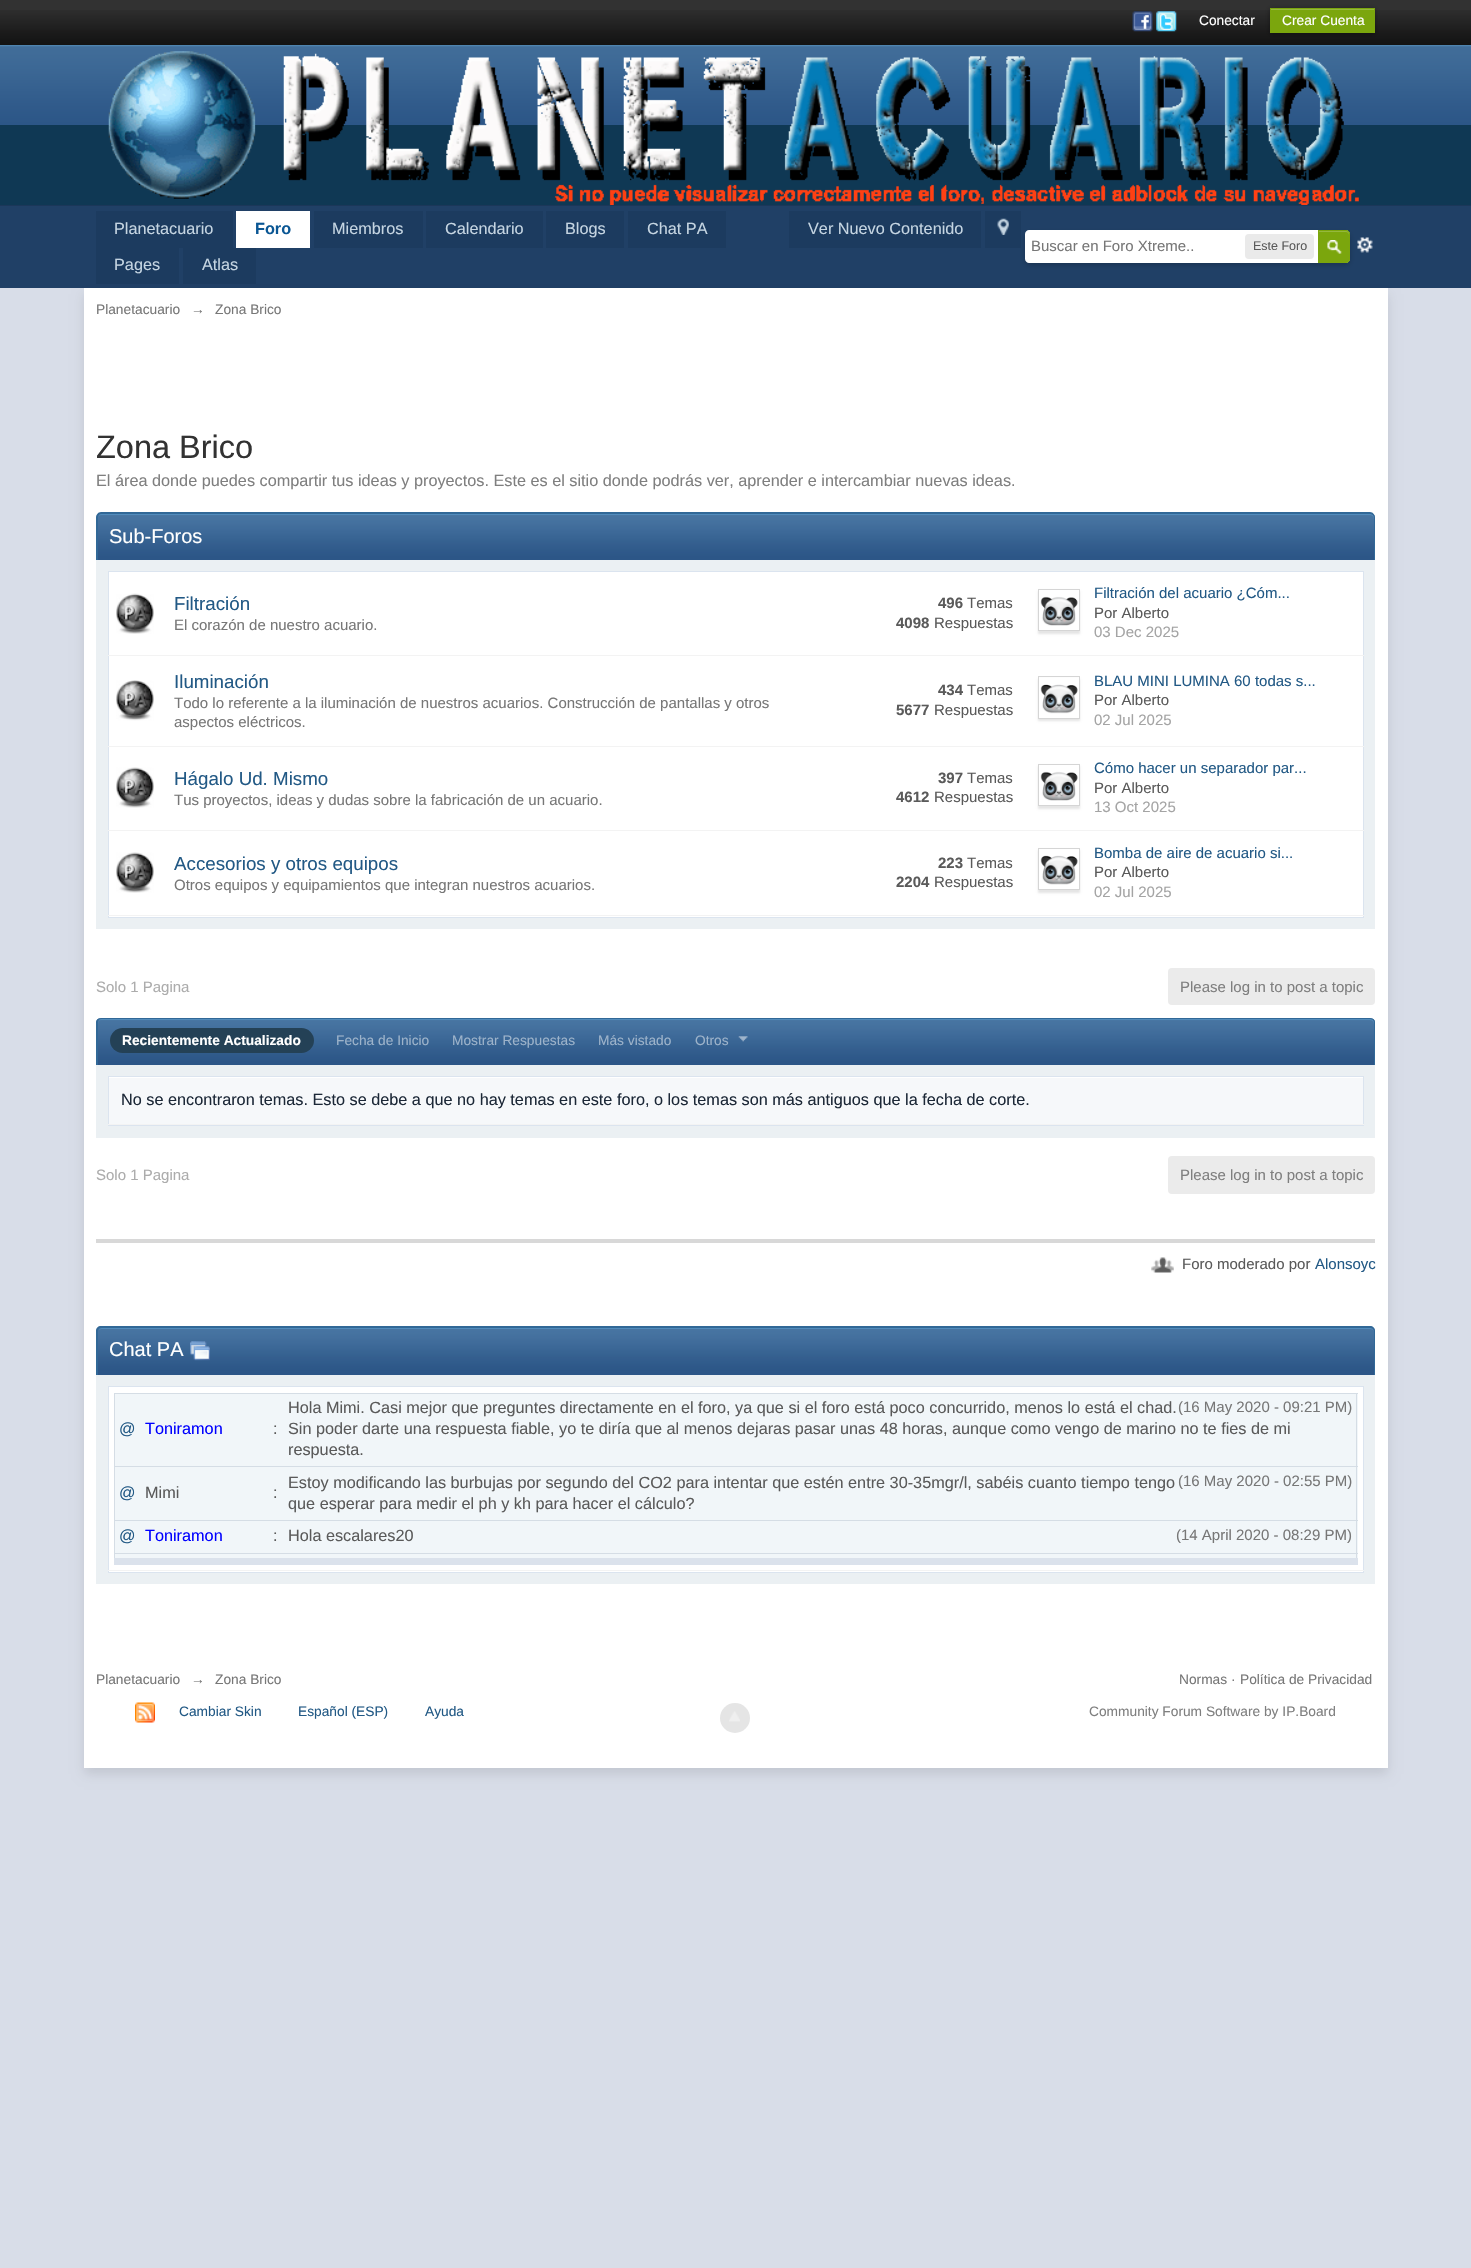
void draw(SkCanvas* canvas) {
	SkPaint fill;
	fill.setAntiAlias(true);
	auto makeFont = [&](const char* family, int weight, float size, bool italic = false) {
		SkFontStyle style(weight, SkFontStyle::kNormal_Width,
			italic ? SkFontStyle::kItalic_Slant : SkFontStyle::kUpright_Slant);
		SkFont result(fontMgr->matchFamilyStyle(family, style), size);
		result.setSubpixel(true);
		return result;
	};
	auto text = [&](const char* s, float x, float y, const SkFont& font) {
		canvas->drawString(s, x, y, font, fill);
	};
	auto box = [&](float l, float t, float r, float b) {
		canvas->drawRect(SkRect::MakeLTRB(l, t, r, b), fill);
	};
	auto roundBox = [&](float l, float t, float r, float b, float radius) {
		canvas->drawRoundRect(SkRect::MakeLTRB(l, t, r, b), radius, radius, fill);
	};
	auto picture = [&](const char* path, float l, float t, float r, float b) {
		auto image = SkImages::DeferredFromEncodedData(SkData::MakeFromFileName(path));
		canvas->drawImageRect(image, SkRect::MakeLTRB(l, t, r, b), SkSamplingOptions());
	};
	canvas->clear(0xFFD8DDE8);
	fill.setColor(0xFF323232);
	box(0, 0, 1471, 10);
	picture("image0.png", 0, 10, 1471, 45);
	picture("image1.png", 1132, 11, 1153, 32);
	picture("image2.png", 1156, 11, 1177, 32);
	fill.setColor(0x66000000);
	fill.setMaskFilter(SkMaskFilter::MakeBlur(kNormal_SkBlurStyle, 2.5f));
	canvas->drawRect(SkRect::MakeLTRB(1270, 9, 1375, 34), fill);
	fill.setMaskFilter(nullptr);
	fill.setColor(0xFF7BA60D);
	box(1270, 8, 1375, 33);
	fill.setColor(0xFF95B83D);
	box(1271, 9, 1374, 10);
	fill.setColor(0xFF204066);
	box(0, 206, 1471, 288);
	fill.setColor(0xFF1C3B5F);
	box(96, 211, 233, 248);
	fill.setColor(0xFFFFFFFF);
	box(236, 211, 310, 248);
	fill.setColor(0xFF1C3B5F);
	box(314, 211, 423, 248);
	box(426, 211, 543, 248);
	box(546, 211, 624, 248);
	box(628, 211, 726, 248);
	box(789, 211, 981, 248);
	picture("image7.png", 1357, 237, 1373, 253);
	fill.setColor(0x33000000);
	fill.setMaskFilter(SkMaskFilter::MakeBlur(kNormal_SkBlurStyle, 2.5f));
	canvas->drawRoundRect(SkRect::MakeLTRB(1025, 233, 1350, 265), 5, 5, fill);
	fill.setMaskFilter(nullptr);
	fill.setColor(0xFF1C3B5F);
	box(985, 211, 1021, 248);
	picture("image3.png", 997, 218, 1009, 235);
	fill.setColor(0x1A000000);
	fill.setMaskFilter(SkMaskFilter::MakeBlur(kNormal_SkBlurStyle, 5.5f));
	canvas->drawRect(SkRect::MakeLTRB(84, 294, 1388, 1774), fill);
	fill.setMaskFilter(nullptr);
	fill.setColor(0xFF1C3B5F);
	box(96, 248, 179, 284);
	box(183, 248, 256, 284);
	fill.setColor(0xFF0F3854);
	box(0, 125, 1471, 205);
	picture("image4.png", 0, 45, 1471, 125);
	fill.setColor(0xFF1B3759);
	box(0, 205, 1471, 206);
	picture("image5.png", 108, 51, 1359, 205);
	fill.setColor(0xFFFFFFFF);
	canvas->drawPath(SkPathBuilder().moveTo(1029, 230).lineTo(1345, 230).cubicTo(1348, 230, 1350, 232, 1350, 235).lineTo(1350, 258).cubicTo(1350, 261, 1348, 263, 1345, 263).lineTo(1029, 263).cubicTo(1027, 263, 1025, 261, 1025, 259).lineTo(1025, 234).cubicTo(1025, 232, 1027, 230, 1029, 230).close().detach(), fill);
	fill.setColor(0xFFEAEAEA);
	roundBox(1245, 234, 1314, 259, 4);
	fill.setColor(0xFF7BA60D);
	canvas->drawPath(SkPathBuilder().moveTo(1318, 230).lineTo(1346, 230).cubicTo(1348, 230, 1350, 232, 1350, 234).lineTo(1350, 259).cubicTo(1350, 261, 1348, 263, 1346, 263).lineTo(1318, 263).close().detach(), fill);
	picture("image6.png", 1327, 240, 1342, 254);
	fill.setColor(0xFF95B83D);
	canvas->drawPath(SkPathBuilder().moveTo(1319, 232).lineTo(1346, 232).cubicTo(1348, 232, 1349, 234, 1349, 235).lineTo(1349, 233.5f).cubicTo(1349, 232, 1348, 231, 1346.5f, 231).lineTo(1319, 231).close().detach(), fill);
	fill.setStyle(SkPaint::kStroke_Style);
	fill.setStrokeWidth(1);
	fill.setColor(0xFF7BA60D);
	canvas->drawPath(SkPathBuilder().moveTo(1318.5f, 230.5f).lineTo(1346, 230.5f).cubicTo(1348, 230.5f, 1349.5f, 232, 1349.5f, 234).lineTo(1349.5f, 259).cubicTo(1349.5f, 261, 1348, 262.5f, 1346, 262.5f).lineTo(1318.5f, 262.5f).close().detach(), fill);
	fill.setStyle(SkPaint::kFill_Style);
	fill.setColor(0xFFFFFFFF);
	box(84, 288, 1388, 1768);
	fill.setColor(0xFF2C5687);
	canvas->drawPath(SkPathBuilder().moveTo(102, 514).lineTo(1370, 514).cubicTo(1372, 514, 1374, 516, 1374, 518).lineTo(1374, 560).lineTo(98, 560).lineTo(98, 518).cubicTo(98, 516, 100, 514, 102, 514).close().detach(), fill);
	picture("image8.png", 96, 513, 1375, 558);
	fill.setColor(0xFF528CBC);
	canvas->drawPath(SkPathBuilder().moveTo(101, 515).lineTo(1370, 515).cubicTo(1372, 515, 1374, 517, 1374, 519).lineTo(1374, 518).cubicTo(1374, 516, 1372, 514, 1370, 514).lineTo(102, 514).cubicTo(100, 514, 98, 516, 98, 518).lineTo(98, 519).cubicTo(98, 517, 99, 515, 101, 515).close().detach(), fill);
	fill.setColor(0xFF316897);
	canvas->drawPath(SkPathBuilder(SkPathFillType::kEvenOdd).moveTo(101, 512).lineTo(1370, 512).cubicTo(1373, 512, 1375, 515, 1375, 518).lineTo(1375, 560).lineTo(96, 560).lineTo(96, 518).cubicTo(96, 515, 98, 512, 101, 512).close().moveTo(101, 514).lineTo(1370, 514).cubicTo(1372, 514, 1374, 515, 1374, 518).lineTo(1374, 560).lineTo(98, 560).lineTo(98, 518).cubicTo(98, 515, 99, 514, 101, 514).close().detach(), fill);
	fill.setColor(0xFFEBF0F3);
	box(96, 560, 1375, 929);
	fill.setColor(0xFFFFFFFF);
	canvas->drawRect(SkRect::MakeLTRB(108.5f, 571.5f, 1363.5f, 917.5f), fill);
	fill.setStyle(SkPaint::kStroke_Style);
	fill.setColor(0xFFDBE4EF);
	canvas->drawRect(SkRect::MakeLTRB(108.5f, 571.5f, 1363.5f, 917.5f), fill);
	picture("image9.png", 116, 593, 154, 634);
	fill.setStyle(SkPaint::kFill_Style);
	fill.setColor(0xFFF3F3F3);
	box(108, 655, 1364, 656);
	canvas->save();
	canvas->clipPath(SkPathBuilder(SkPathFillType::kEvenOdd).moveTo(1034, 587).lineTo(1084, 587).lineTo(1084, 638).lineTo(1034, 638).close().moveTo(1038, 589).lineTo(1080, 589).lineTo(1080, 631).lineTo(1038, 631).close().detach(), true);
	fill.setColor(0x1A000000);
	fill.setMaskFilter(SkMaskFilter::MakeBlur(kNormal_SkBlurStyle, 1));
	canvas->drawRect(SkRect::MakeLTRB(1038, 591, 1080, 634), fill);
	fill.setMaskFilter(nullptr);
	canvas->restore();
	fill.setStyle(SkPaint::kStroke_Style);
	fill.setColor(0xFFD5D5D5);
	canvas->drawRect(SkRect::MakeLTRB(1038.5f, 589.5f, 1079.5f, 630.5f), fill);
	picture("image10.png", 1040, 596, 1078, 626);
	picture("image11.png", 116, 680, 154, 721);
	fill.setStyle(SkPaint::kFill_Style);
	fill.setColor(0xFFF3F3F3);
	box(108, 746, 1364, 747);
	fill.setColor(0x1A000000);
	fill.setMaskFilter(SkMaskFilter::MakeBlur(kNormal_SkBlurStyle, 1));
	canvas->drawRect(SkRect::MakeLTRB(1038, 679, 1080, 721), fill);
	fill.setMaskFilter(nullptr);
	fill.setColor(0xFFFFFFFF);
	box(1039, 678, 1079, 718);
	fill.setStyle(SkPaint::kStroke_Style);
	fill.setColor(0xFFD5D5D5);
	canvas->drawRect(SkRect::MakeLTRB(1038.5f, 676.5f, 1079.5f, 718.5f), fill);
	picture("image12.png", 1040, 684, 1078, 714);
	picture("image13.png", 116, 767, 154, 808);
	fill.setStyle(SkPaint::kFill_Style);
	fill.setColor(0xFFF3F3F3);
	box(108, 830, 1364, 831);
	canvas->save();
	canvas->clipPath(SkPathBuilder(SkPathFillType::kEvenOdd).moveTo(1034, 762).lineTo(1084, 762).lineTo(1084, 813).lineTo(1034, 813).close().moveTo(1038, 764).lineTo(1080, 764).lineTo(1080, 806).lineTo(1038, 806).close().detach(), true);
	fill.setColor(0x1A000000);
	fill.setMaskFilter(SkMaskFilter::MakeBlur(kNormal_SkBlurStyle, 1));
	canvas->drawRect(SkRect::MakeLTRB(1038, 766, 1080, 809), fill);
	fill.setMaskFilter(nullptr);
	canvas->restore();
	fill.setStyle(SkPaint::kStroke_Style);
	fill.setColor(0xFFD5D5D5);
	canvas->drawRect(SkRect::MakeLTRB(1038.5f, 764.5f, 1079.5f, 805.5f), fill);
	picture("image14.png", 1040, 771, 1078, 801);
	picture("image13.png", 116, 852, 154, 893);
	fill.setStyle(SkPaint::kFill_Style);
	fill.setColor(0xFFF3F3F3);
	box(108, 915, 1364, 916);
	canvas->save();
	canvas->clipPath(SkPathBuilder(SkPathFillType::kEvenOdd).moveTo(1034, 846).lineTo(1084, 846).lineTo(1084, 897).lineTo(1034, 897).close().moveTo(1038, 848).lineTo(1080, 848).lineTo(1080, 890).lineTo(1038, 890).close().detach(), true);
	fill.setColor(0x1A000000);
	fill.setMaskFilter(SkMaskFilter::MakeBlur(kNormal_SkBlurStyle, 1));
	canvas->drawRect(SkRect::MakeLTRB(1038, 850, 1080, 893), fill);
	fill.setMaskFilter(nullptr);
	canvas->restore();
	fill.setStyle(SkPaint::kStroke_Style);
	fill.setColor(0xFFD5D5D5);
	canvas->drawRect(SkRect::MakeLTRB(1038.5f, 848.5f, 1079.5f, 889.5f), fill);
	picture("image15.png", 1040, 855, 1078, 885);
	fill.setStyle(SkPaint::kFill_Style);
	fill.setColor(0xFFEBEBEB);
	roundBox(1168, 968, 1375, 1005, 4);
	fill.setColor(0xFF2C5687);
	canvas->drawPath(SkPathBuilder().moveTo(102, 1019).lineTo(1370, 1019).cubicTo(1372, 1019, 1374, 1021, 1374, 1023).lineTo(1374, 1065).lineTo(98, 1065).lineTo(98, 1023).cubicTo(98, 1021, 100, 1019, 102, 1019).close().detach(), fill);
	picture("image16.png", 96, 1018, 1375, 1063);
	fill.setColor(0xFF528CBC);
	canvas->drawPath(SkPathBuilder().moveTo(101, 1020).lineTo(1370, 1020).cubicTo(1372, 1020, 1374, 1022, 1374, 1024).lineTo(1374, 1023).cubicTo(1374, 1021, 1372, 1019, 1370, 1019).lineTo(102, 1019).cubicTo(100, 1019, 98, 1021, 98, 1023).lineTo(98, 1024).cubicTo(98, 1022, 99, 1020, 101, 1020).close().detach(), fill);
	fill.setColor(0xFF316897);
	canvas->drawPath(SkPathBuilder(SkPathFillType::kEvenOdd).moveTo(101, 1018).lineTo(1370, 1018).cubicTo(1373, 1018, 1375, 1020, 1375, 1022).lineTo(1375, 1065).lineTo(96, 1065).lineTo(96, 1022).cubicTo(96, 1020, 98, 1018, 101, 1018).close().moveTo(101, 1019).lineTo(1370, 1019).cubicTo(1372, 1019, 1374, 1020, 1374, 1022).lineTo(1374, 1065).lineTo(98, 1065).lineTo(98, 1022).cubicTo(98, 1020, 99, 1019, 101, 1019).close().detach(), fill);
	fill.setColor(0xFF244156);
	roundBox(110, 1028, 314, 1053, 12.5f);
	picture("image17.png", 738, 1036, 748, 1042);
	fill.setColor(0xFFEBF0F3);
	box(96, 1065, 1375, 1138);
	fill.setColor(0xFFFFFFFF);
	box(109, 1077, 1363, 1078);
	fill.setStyle(SkPaint::kStroke_Style);
	fill.setColor(0xFFDBE4EF);
	canvas->drawRect(SkRect::MakeLTRB(108.5f, 1076.5f, 1363.5f, 1125.5f), fill);
	fill.setStyle(SkPaint::kFill_Style);
	fill.setColor(0xFFF6F8FA);
	box(109, 1078, 1363, 1124);
	fill.setColor(0xFFF3F3F3);
	box(108, 1124, 1364, 1125);
	fill.setColor(0xFFEBEBEB);
	roundBox(1168, 1156, 1375, 1194, 4);
	fill.setColor(0xFFD8D8D8);
	box(96, 1239, 1375, 1243);
	picture("image18.png", 1151, 1257, 1174, 1273);
	fill.setColor(0xFF2C5687);
	box(98, 1371, 1374, 1375);
	picture("image19.png", 96, 1327, 1375, 1372);
	fill.setColor(0xFF528CBC);
	canvas->drawPath(SkPathBuilder().moveTo(101, 1329).lineTo(1370, 1329).cubicTo(1372, 1329, 1374, 1330, 1374, 1332).cubicTo(1374, 1330, 1372, 1328, 1370, 1328).lineTo(102, 1328).cubicTo(101, 1328, 99, 1329, 99, 1330).close().detach(), fill);
	fill.setColor(0xFF316897);
	canvas->drawPath(SkPathBuilder(SkPathFillType::kEvenOdd).moveTo(101, 1326).lineTo(1370, 1326).cubicTo(1373, 1326, 1375, 1328, 1375, 1331).lineTo(1375, 1375).lineTo(96, 1375).lineTo(96, 1331).cubicTo(96, 1328, 98, 1326, 101, 1326).close().moveTo(101, 1328).lineTo(1370, 1328).cubicTo(1372, 1328, 1374, 1329, 1374, 1331).lineTo(1374, 1375).lineTo(98, 1375).lineTo(98, 1331).cubicTo(98, 1329, 99, 1328, 101, 1328).close().detach(), fill);
	picture("image20.png", 190, 1341, 210, 1361);
	fill.setColor(0xFFEBF0F3);
	box(96, 1375, 1375, 1584);
	fill.setColor(0xFFFFFFFF);
	canvas->drawRect(SkRect::MakeLTRB(108.5f, 1386.5f, 1363.5f, 1572.5f), fill);
	fill.setStyle(SkPaint::kStroke_Style);
	fill.setColor(0xFFDBE4EF);
	canvas->drawRect(SkRect::MakeLTRB(108.5f, 1386.5f, 1363.5f, 1572.5f), fill);
	fill.setStyle(SkPaint::kFill_Style);
	fill.setColor(0xFFF3F3F3);
	box(108, 1570, 1364, 1571);
	fill.setColor(0xFFD5DDE5);
	box(114, 1393, 1358, 1394);
	fill.setColor(0xFFF1F6F9);
	box(115, 1394, 1358, 1520);
	box(115, 1521, 1358, 1553);
	box(114, 1554, 1358, 1558);
	fill.setColor(0xFFD5DDE5);
	box(1356, 1393, 1357, 1558);
	box(114, 1393, 115, 1558);
	box(114, 1466, 1358, 1467);
	box(114, 1520, 1358, 1521);
	box(114, 1553, 1358, 1554);
	fill.setColor(0xFFDBE2EC);
	box(114, 1558, 1358, 1565);
	picture("image21.png", 135, 1702, 155, 1723);
	fill.setColor(0xFFE5E5E5);
	canvas->drawCircle(735, 1718, 15, fill);
	picture("image22.png", 729, 1711, 740, 1722);
	auto font1 = makeFont("Liberation Sans", 400, 13.75f);
	fill.setColor(0xFFFFFFFF);
	text("Conectar", 1199, 25, font1);
	text("Crear Cuenta", 1282, 25, font1);
	auto font2 = makeFont("Liberation Sans", 400, 16.25f);
	fill.setColor(0xFFC5D5E2);
	text("Planetacuario", 114, 234, font2);
	auto font3 = makeFont("Liberation Sans", 700, 16.25f);
	fill.setColor(0xFF0B5794);
	text("Foro", 255, 234, font3);
	fill.setColor(0xFFC5D5E2);
	text("Miembros", 332, 234, font2);
	text("Calendario", 445, 234, font2);
	text("Blogs", 565, 234, font2);
	text("Chat PA", 647, 234, font2);
	text("Ver Nuevo Contenido", 808, 234, font2);
	text("Pages", 114, 270, font2);
	text("Atlas", 202, 270, font2);
	auto font4 = makeFont("Liberation Sans", 400, 15);
	fill.setColor(0xFF777777);
	text("Buscar en Foro Xtreme..", 1031, 251, font4);
	auto font5 = makeFont("Liberation Sans", 400, 12.5f);
	fill.setColor(0xFF5A5A5A);
	text("Este Foro", 1253, 250, font5);
	fill.setColor(0xFF777777);
	text("Planetacuario", 96, 314, font1);
	text("→", 191, 314, font1);
	text("Zona Brico", 215, 314, font1);
	auto font6 = makeFont("Liberation Sans", 400, 32.5f);
	fill.setColor(0xFF323232);
	text("Zona Brico", 96, 458, font6);
	fill.setColor(0xFF7F7F7F);
	text("El área donde puedes compartir tus ideas y proyectos. Este es el sitio donde podrás ver, aprender e intercambiar nuevas ideas.", 96, 486, font2);
	auto font7 = makeFont("Liberation Sans", 400, 20);
	fill.setColor(0xFFFFFFFF);
	text("Sub-Foros", 109, 543, font7);
	auto font8 = makeFont("Liberation Sans", 400, 18.75f);
	fill.setColor(0xFF225985);
	text("Filtración", 174, 610, font8);
	fill.setColor(0xFF777777);
	text("El corazón de nuestro acuario.", 174, 630, font4);
	auto font9 = makeFont("Liberation Sans", 700, 15);
	fill.setColor(0xFF5A5A5A);
	text("496", 938, 608, font9);
	text("Temas", 967, 608, font4);
	text("4098", 896, 628, font9);
	text("Respuestas", 934, 628, font4);
	fill.setColor(0xFF225985);
	text("Filtración del acuario ¿Cóm...", 1094, 598, font4);
	fill.setColor(0xFF5A5A5A);
	text("Por Alberto", 1094, 618, font4);
	fill.setColor(0xFFA4A4A4);
	text("03 Dec 2025", 1094, 637, font4);
	fill.setColor(0xFF225985);
	text("Iluminación", 174, 688, font8);
	fill.setColor(0xFF777777);
	text("Todo lo referente a la iluminación de nuestros acuarios. Construcción de pantallas y otros", 174, 708, font4);
	text("aspectos eléctricos.", 174, 727, font4);
	fill.setColor(0xFF5A5A5A);
	text("434", 938, 695, font9);
	text("Temas", 967, 695, font4);
	text("5677", 896, 715, font9);
	text("Respuestas", 934, 715, font4);
	fill.setColor(0xFF225985);
	text("BLAU MINI LUMINA 60 todas s...", 1094, 686, font4);
	fill.setColor(0xFF5A5A5A);
	text("Por Alberto", 1094, 705, font4);
	fill.setColor(0xFFA4A4A4);
	text("02 Jul 2025", 1094, 725, font4);
	fill.setColor(0xFF225985);
	text("Hágalo Ud. Mismo", 174, 785, font8);
	fill.setColor(0xFF777777);
	text("Tus proyectos, ideas y dudas sobre la fabricación de un acuario.", 174, 805, font4);
	fill.setColor(0xFF5A5A5A);
	text("397", 938, 783, font9);
	text("Temas", 967, 783, font4);
	text("4612", 896, 802, font9);
	text("Respuestas", 934, 802, font4);
	fill.setColor(0xFF225985);
	text("Cómo hacer un separador par...", 1094, 773, font4);
	fill.setColor(0xFF5A5A5A);
	text("Por Alberto", 1094, 793, font4);
	fill.setColor(0xFFA4A4A4);
	text("13 Oct 2025", 1094, 812, font4);
	fill.setColor(0xFF225985);
	text("Accesorios y otros equipos", 174, 870, font8);
	fill.setColor(0xFF777777);
	text("Otros equipos y equipamientos que integran nuestros acuarios.", 174, 890, font4);
	fill.setColor(0xFF5A5A5A);
	text("223", 938, 868, font9);
	text("Temas", 967, 868, font4);
	text("2204", 896, 887, font9);
	text("Respuestas", 934, 887, font4);
	fill.setColor(0xFF225985);
	text("Bomba de aire de acuario si...", 1094, 858, font4);
	fill.setColor(0xFF5A5A5A);
	text("Por Alberto", 1094, 877, font4);
	fill.setColor(0xFFA4A4A4);
	text("02 Jul 2025", 1094, 897, font4);
	fill.setColor(0xFFACACAC);
	text("Solo 1 Pagina", 96, 992, font4);
	fill.setColor(0xFF7F7F7F);
	text("Please log in to post a topic", 1180, 992, font4);
	auto font10 = makeFont("Liberation Sans", 700, 13.75f);
	fill.setColor(0xFFFFFFFF);
	text("Recientemente Actualizado", 122, 1045, font10);
	fill.setColor(0xFF9DB3CA);
	text("Fecha de Inicio", 336, 1045, font1);
	text("Mostrar Respuestas", 452, 1045, font1);
	text("Más vistado", 598, 1045, font1);
	text("Otros", 695, 1045, font1);
	fill.setColor(0xFF1C2837);
	text("No se encontraron temas. Esto se debe a que no hay temas en este foro, o los temas son más antiguos que la fecha de corte.", 121, 1105, font2);
	fill.setColor(0xFFACACAC);
	text("Solo 1 Pagina", 96, 1180, font4);
	fill.setColor(0xFF7F7F7F);
	text("Please log in to post a topic", 1180, 1180, font4);
	fill.setColor(0xFF5A5A5A);
	text("Foro moderado por", 1182, 1269, font4);
	fill.setColor(0xFF225985);
	text("Alonsoyc", 1315, 1269, font4);
	fill.setColor(0xFFFFFFFF);
	text("Chat PA", 109, 1356, font7);
	fill.setColor(0xFF225985);
	text("@", 119, 1434, font2);
	fill.setColor(0xFF0000FF);
	text("Toniramon", 145, 1434, font2);
	fill.setColor(0xFF5A5A5A);
	text(":", 273, 1434, font2);
	text("Hola Mimi. Casi mejor que preguntes directamente en el foro, ya que si el foro está poco concurrido, menos lo está el chad.", 288, 1413, font2);
	text("Sin poder darte una respuesta fiable, yo te diría que al menos dejaras pasar unas 48 horas, aunque como vengo de marino no te fies de mi", 288, 1434, font2);
	text("respuesta.", 288, 1455, font2);
	fill.setColor(0xFF777777);
	text("(16 May 2020 - 09:21 PM)", 1178, 1412, font4);
	fill.setColor(0xFF225985);
	text("@", 119, 1498, font2);
	fill.setColor(0xFF5A5A5A);
	text("Mimi", 145, 1498, font2);
	text(":", 273, 1498, font2);
	text("Estoy modificando las burbujas por segundo del CO2 para intentar que estén entre 30-35mgr/l, sabéis cuanto tiempo tengo", 288, 1488, font2);
	text("que esperar para medir el ph y kh para hacer el cálculo?", 288, 1509, font2);
	fill.setColor(0xFF777777);
	text("(16 May 2020 - 02:55 PM)", 1178, 1486, font4);
	fill.setColor(0xFF225985);
	text("@", 119, 1541, font2);
	fill.setColor(0xFF0000FF);
	text("Toniramon", 145, 1541, font2);
	fill.setColor(0xFF5A5A5A);
	text(":", 273, 1541, font2);
	text("Hola escalares20", 288, 1541, font2);
	fill.setColor(0xFF777777);
	text("(14 April 2020 - 08:29 PM)", 1176, 1540, font4);
	text("Planetacuario", 96, 1684, font1);
	text("→", 191, 1684, font1);
	text("Zona Brico", 215, 1684, font1);
	text("Normas ·", 1179, 1684, font1);
	text("Política de Privacidad", 1240, 1684, font1);
	fill.setColor(0xFF225985);
	text("Cambiar Skin", 179, 1716, font1);
	text("Español (ESP)", 298, 1716, font1);
	text("Ayuda", 425, 1716, font1);
	fill.setColor(0xFF7F7F7F);
	text("Community Forum Software by IP.Board", 1089, 1716, font1);
}
